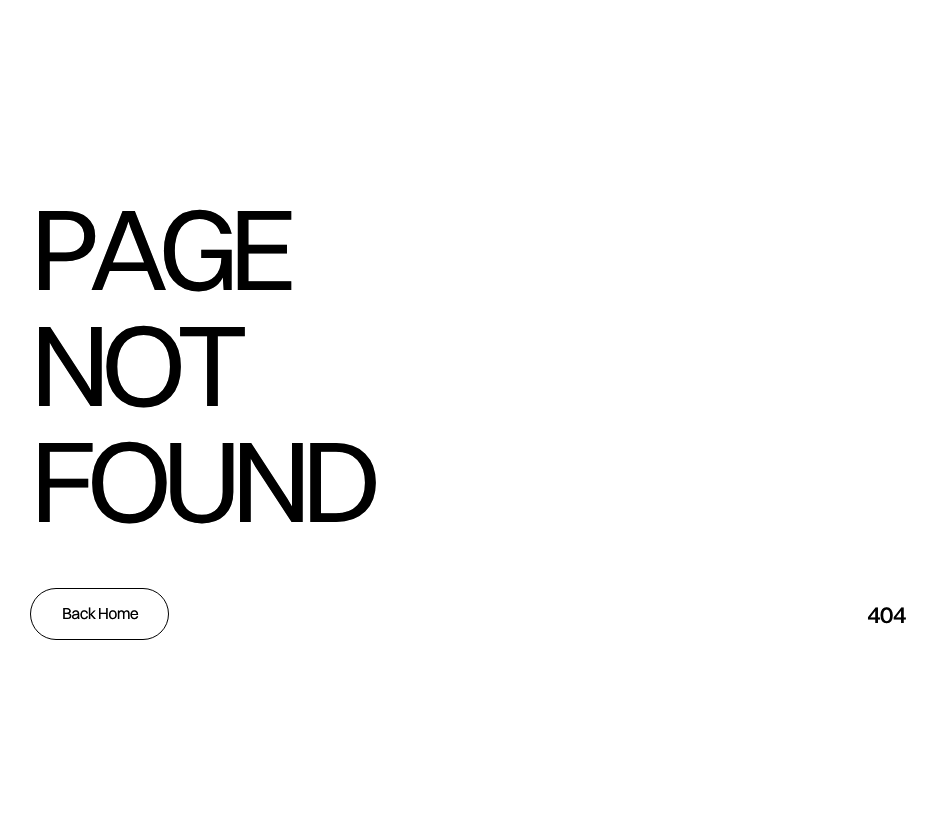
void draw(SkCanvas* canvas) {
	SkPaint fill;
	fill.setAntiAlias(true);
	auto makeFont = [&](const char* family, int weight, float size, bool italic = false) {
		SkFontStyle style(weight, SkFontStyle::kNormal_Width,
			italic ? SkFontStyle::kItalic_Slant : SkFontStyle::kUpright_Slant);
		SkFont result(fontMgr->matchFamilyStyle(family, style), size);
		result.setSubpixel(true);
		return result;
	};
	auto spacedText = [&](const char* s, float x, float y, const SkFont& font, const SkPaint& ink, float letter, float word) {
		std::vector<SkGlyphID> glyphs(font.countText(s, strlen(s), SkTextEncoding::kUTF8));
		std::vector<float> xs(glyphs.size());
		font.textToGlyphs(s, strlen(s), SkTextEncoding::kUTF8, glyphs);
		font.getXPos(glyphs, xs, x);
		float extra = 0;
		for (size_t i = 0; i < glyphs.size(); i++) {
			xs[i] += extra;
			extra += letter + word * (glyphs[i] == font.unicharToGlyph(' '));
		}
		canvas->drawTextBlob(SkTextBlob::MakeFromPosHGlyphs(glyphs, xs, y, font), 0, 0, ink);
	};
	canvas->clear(0xFFFFFFFF);
	fill.setStyle(SkPaint::kStroke_Style);
	fill.setStrokeWidth(1);
	fill.setColor(0xFF000000);
	canvas->drawRoundRect(SkRect::MakeLTRB(30.5f, 588.5f, 168.5f, 639.5f), 25.5f, 25.5f, fill);
	auto font1 = makeFont("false", 400, 116);
	fill.setStyle(SkPaint::kFill_Style);
	spacedText("PAGE", 30, 290, font1, fill, -10.5f, 0);
	spacedText("NOT", 30, 406, font1, fill, -10.5f, 0);
	spacedText("FOUND", 30, 522, font1, fill, -10.5f, 0);
	auto font2 = makeFont("false", 400, 16);
	spacedText("Back Home", 62, 619, font2, fill, -0.75f, 0);
	auto font3 = makeFont("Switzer", 500, 24);
	spacedText("404", 867, 623, font3, fill, -1, 0);
}
